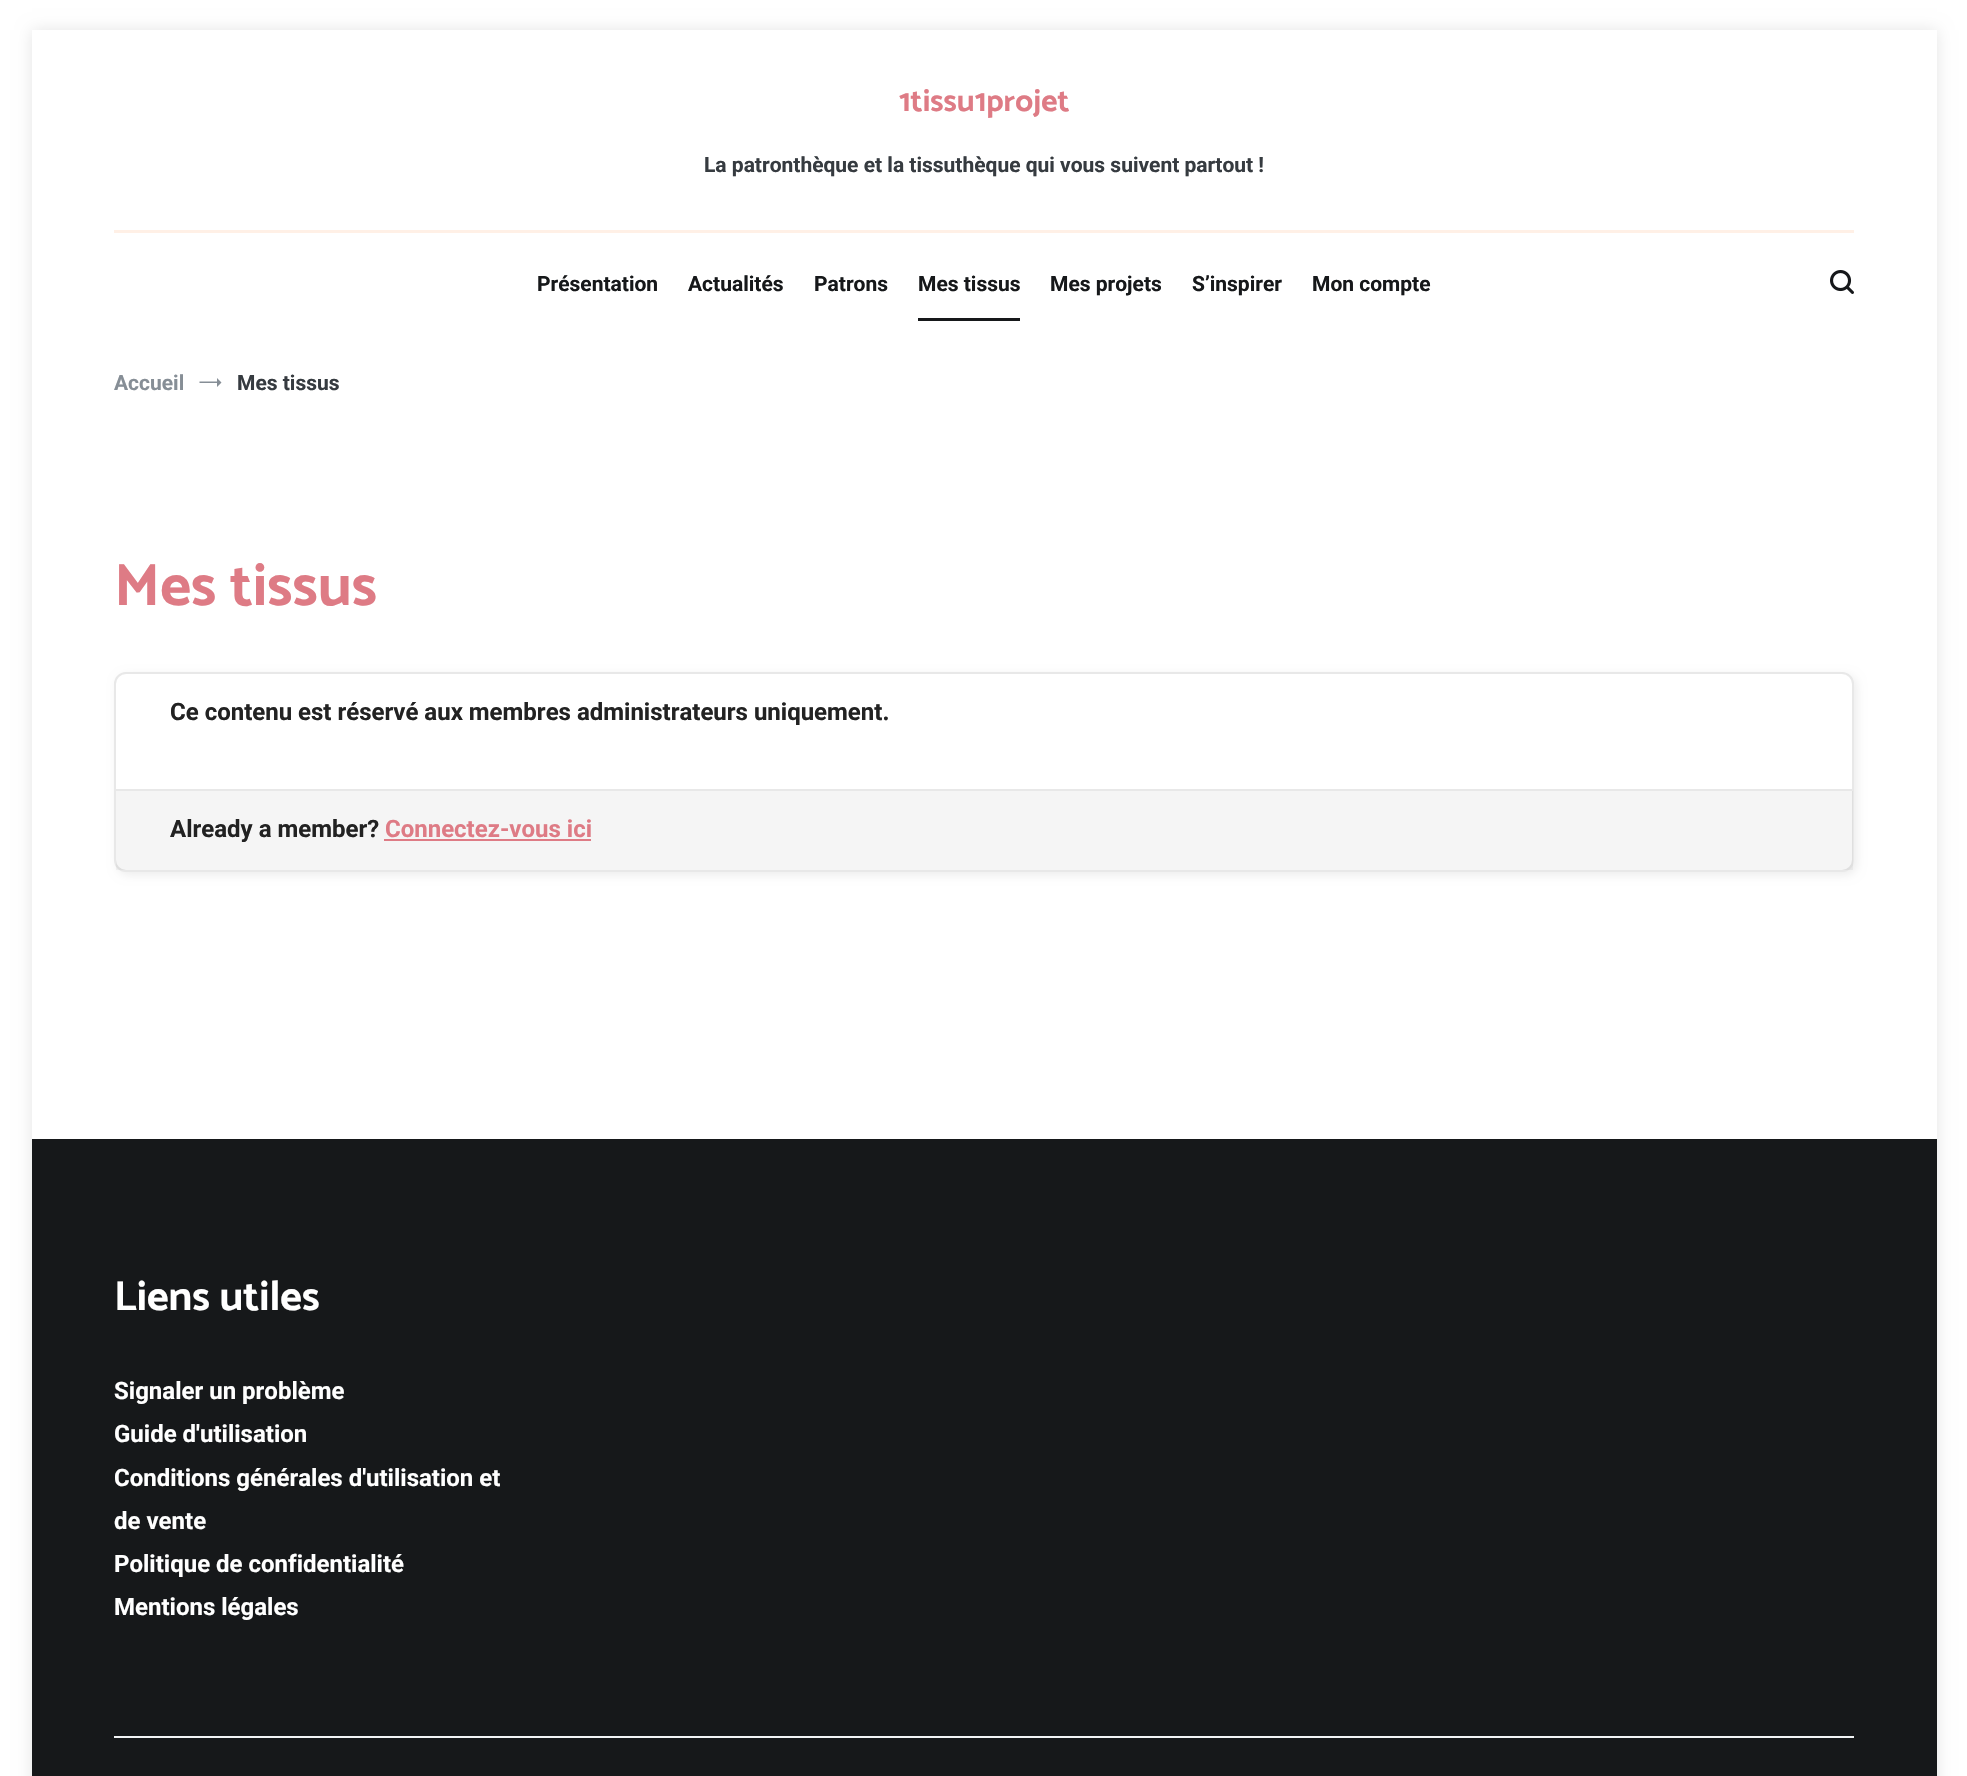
void draw(SkCanvas* canvas) {
	SkPaint fill;
	fill.setAntiAlias(true);
	auto makeFont = [&](const char* family, int weight, float size, bool italic = false) {
		SkFontStyle style(weight, SkFontStyle::kNormal_Width,
			italic ? SkFontStyle::kItalic_Slant : SkFontStyle::kUpright_Slant);
		SkFont result(fontMgr->matchFamilyStyle(family, style), size);
		result.setSubpixel(true);
		return result;
	};
	auto text = [&](const char* s, float x, float y, const SkFont& font) {
		canvas->drawString(s, x, y, font, fill);
	};
	auto box = [&](float l, float t, float r, float b) {
		canvas->drawRect(SkRect::MakeLTRB(l, t, r, b), fill);
	};
	auto picture = [&](const char* path, float l, float t, float r, float b) {
		auto image = SkImages::DeferredFromEncodedData(SkData::MakeFromFileName(path));
		canvas->drawImageRect(image, SkRect::MakeLTRB(l, t, r, b), SkSamplingOptions());
	};
	canvas->clear(0xFFFFFFFF);
	canvas->save();
	canvas->clipPath(SkPathBuilder(SkPathFillType::kEvenOdd).moveTo(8, 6).lineTo(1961, 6).lineTo(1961, 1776).lineTo(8, 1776).close().moveTo(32, 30).lineTo(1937, 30).lineTo(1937, 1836).lineTo(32, 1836).close().detach(), true);
	fill.setColor(0x1A000000);
	fill.setMaskFilter(SkMaskFilter::MakeBlur(kNormal_SkBlurStyle, 7.5f));
	canvas->drawRect(SkRect::MakeLTRB(32, 30, 1937, 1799), fill);
	fill.setMaskFilter(nullptr);
	canvas->restore();
	fill.setColor(0xFFFFF0E6);
	box(114, 230, 1854, 233);
	fill.setColor(0xFF16181A);
	box(918, 318, 1020, 321);
	picture("image0.png", 1830, 270, 1854, 294);
	fill.setColor(0xFF868E96);
	canvas->drawPath(SkPathBuilder().moveTo(221.5f, 382.5f).lineTo(217, 387).lineTo(217, 378).close().moveTo(199.5f, 381.5f).lineTo(217, 381.5f).lineTo(217, 383).lineTo(199.5f, 383).close().detach(), fill);
	fill.setColor(0x12000000);
	fill.setMaskFilter(SkMaskFilter::MakeBlur(kNormal_SkBlurStyle, 5));
	canvas->drawRoundRect(SkRect::MakeLTRB(117, 675, 1857, 875), 12, 12, fill);
	fill.setMaskFilter(nullptr);
	fill.setColor(0xFFFFFFFF);
	canvas->drawRoundRect(SkRect::MakeLTRB(115, 673, 1853, 871), 11, 11, fill);
	fill.setStyle(SkPaint::kStroke_Style);
	fill.setStrokeWidth(2);
	fill.setColor(0xFFE8E8E8);
	canvas->drawRoundRect(SkRect::MakeLTRB(115, 673, 1853, 871), 11, 11, fill);
	fill.setStyle(SkPaint::kFill_Style);
	fill.setColor(0x0A000000);
	box(116, 791, 1853, 870);
	fill.setColor(0xFFE8E8E8);
	box(116, 789, 1853, 791);
	fill.setColor(0xFFDE7B85);
	box(384, 839, 591, 841);
	fill.setColor(0xFF16181A);
	box(32, 1139, 1937, 1776);
	fill.setColor(0xFFF1F3F5);
	box(114, 1736, 1854, 1738);
	auto font1 = makeFont("Catamaran", 700, 31.5f);
	fill.setColor(0xFFDE7B85);
	text("1tissu1projet", 899, 111, font1);
	auto font2 = makeFont("Roboto", 700, 21);
	fill.setColor(0xFF363B40);
	text("La patronthèque et la tissuthèque qui vous suivent partout !", 704, 172, font2);
	fill.setColor(0xFF16181A);
	text("Présentation", 537, 291, font2);
	text("Actualités", 688, 291, font2);
	text("Patrons", 814, 291, font2);
	text("Mes tissus", 918, 291, font2);
	text("Mes projets", 1050, 291, font2);
	text("S’inspirer", 1192, 291, font2);
	text("Mon compte", 1312, 291, font2);
	fill.setColor(0xFF868E96);
	text("Accueil", 114, 390, font2);
	fill.setColor(0xFF363B40);
	text("Mes tissus", 237, 390, font2);
	auto font3 = makeFont("Catamaran", 700, 60);
	fill.setColor(0xFFDE7B85);
	text("Mes tissus", 114, 605, font3);
	auto font4 = makeFont("Roboto", 700, 24);
	fill.setColor(0xFF222222);
	text("Ce contenu est réservé aux membres administrateurs uniquement.", 170, 720, font4);
	text("Already a member?", 170, 837, font4);
	fill.setColor(0xFFDE7B85);
	text("Connectez-vous ici", 385, 837, font4);
	auto font5 = makeFont("Catamaran", 700, 42);
	fill.setColor(0xFFFFFFFF);
	text("Liens utiles", 114, 1310, font5);
	text("Signaler un problème", 114, 1399, font4);
	text("Guide d'utilisation", 114, 1442, font4);
	text("Conditions générales d'utilisation et", 114, 1486, font4);
	text("de vente", 114, 1529, font4);
	text("Politique de confidentialité", 114, 1572, font4);
	text("Mentions légales", 114, 1615, font4);
}
